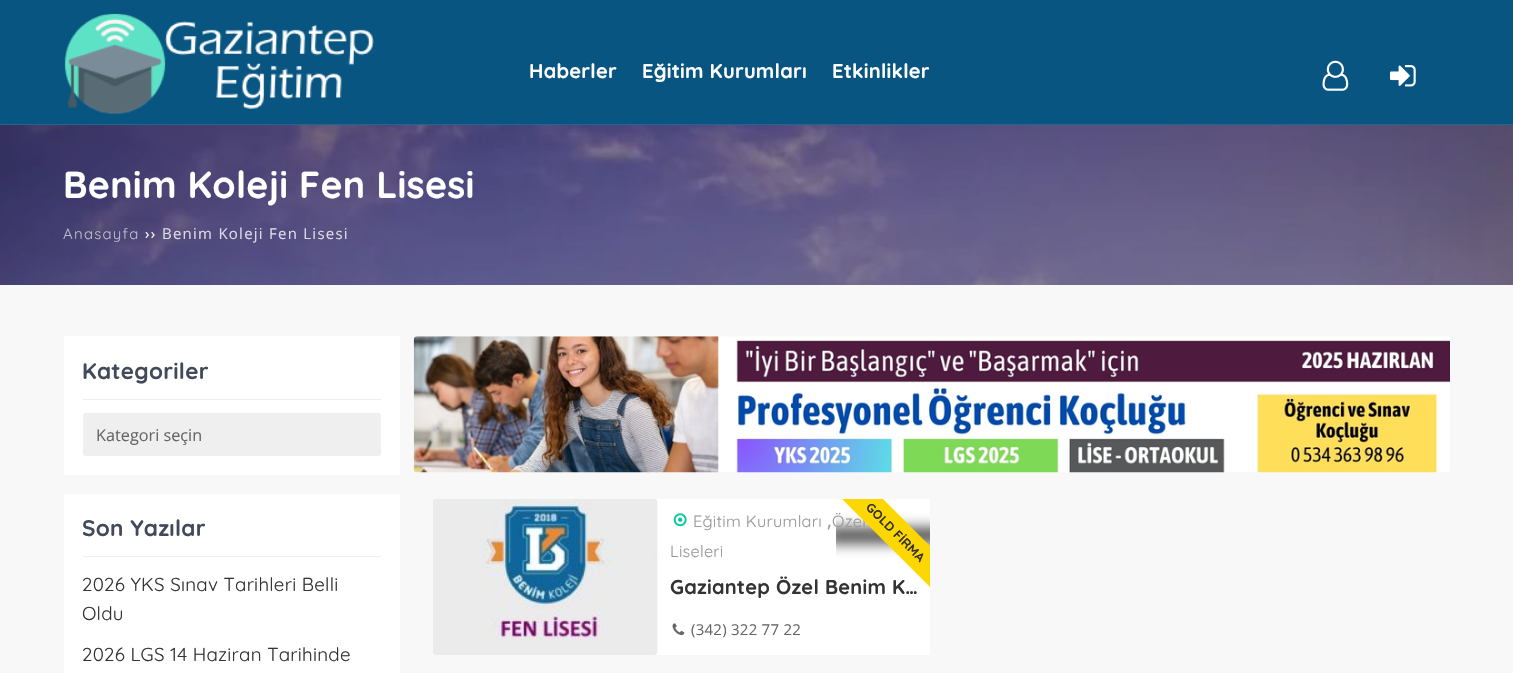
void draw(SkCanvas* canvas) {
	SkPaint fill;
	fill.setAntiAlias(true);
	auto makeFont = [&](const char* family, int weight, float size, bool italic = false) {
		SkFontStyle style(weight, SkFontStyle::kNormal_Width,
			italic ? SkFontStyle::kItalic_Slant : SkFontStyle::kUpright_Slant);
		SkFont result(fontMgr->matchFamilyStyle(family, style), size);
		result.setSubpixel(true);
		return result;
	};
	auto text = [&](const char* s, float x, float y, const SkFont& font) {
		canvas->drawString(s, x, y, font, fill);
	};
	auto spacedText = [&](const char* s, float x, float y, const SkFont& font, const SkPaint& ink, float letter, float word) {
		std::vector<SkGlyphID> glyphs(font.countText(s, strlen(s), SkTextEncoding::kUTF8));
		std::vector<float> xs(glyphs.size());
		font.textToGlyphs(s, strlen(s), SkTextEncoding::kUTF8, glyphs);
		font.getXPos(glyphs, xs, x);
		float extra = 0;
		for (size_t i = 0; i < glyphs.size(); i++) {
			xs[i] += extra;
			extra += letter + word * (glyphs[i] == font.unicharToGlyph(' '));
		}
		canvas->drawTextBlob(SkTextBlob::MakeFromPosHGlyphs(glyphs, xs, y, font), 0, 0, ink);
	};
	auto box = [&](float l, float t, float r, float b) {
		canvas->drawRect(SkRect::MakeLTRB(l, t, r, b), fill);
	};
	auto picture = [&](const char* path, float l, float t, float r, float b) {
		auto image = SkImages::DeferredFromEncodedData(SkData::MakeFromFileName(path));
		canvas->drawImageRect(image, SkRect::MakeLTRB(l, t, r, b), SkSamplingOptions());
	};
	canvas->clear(0xFFF8F8F8);
	fill.setColor(0xFF085581);
	box(0, 0, 1513, 124);
	fill.setColor(0xFF21668E);
	box(0, 124, 1513, 125);
	picture("image0.png", 64, 13, 374, 114);
	picture("image1.png", 1322, 60, 1349, 91);
	picture("image2.png", 1390, 65, 1416, 87);
	picture("image3.png", 0, 125, 1513, 285);
	fill.setColor(0xFFFFFFFF);
	box(64, 336, 400, 475);
	fill.setColor(0xFFEEEEEE);
	box(83, 399, 381, 400);
	fill.setColor(0xFFEFEFEF);
	canvas->drawRoundRect(SkRect::MakeLTRB(83.5f, 413.5f, 380.5f, 455.5f), 2, 2, fill);
	fill.setStyle(SkPaint::kStroke_Style);
	fill.setStrokeWidth(1);
	fill.setColor(0xFFEEEEEE);
	canvas->drawRoundRect(SkRect::MakeLTRB(83.5f, 413.5f, 380.5f, 455.5f), 2, 2, fill);
	fill.setStyle(SkPaint::kFill_Style);
	fill.setColor(0xFFFFFFFF);
	box(64, 494, 400, 673);
	fill.setColor(0xFFEEEEEE);
	box(83, 556, 381, 557);
	picture("image4.png", 413, 336, 1450, 473);
	fill.setColor(0xFFFFFFFF);
	box(433, 499, 930, 655);
	picture("image5.png", 433, 499, 658, 655);
	canvas->save();
	canvas->clipRect(SkRect::MakeLTRB(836, 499, 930, 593));
	fill.setColor(0xFF000000);
	fill.setMaskFilter(SkMaskFilter::MakeBlur(kNormal_SkBlurStyle, 7.5f));
	canvas->drawRect(SkRect::MakeLTRB(826, 530, 965, 541), fill);
	fill.setMaskFilter(nullptr);
	canvas->restore();
	picture("image6.png", 673, 513, 687, 527);
	picture("image7.png", 672, 623, 685, 636);
	auto font1 = makeFont("Quicksand", 700, 20);
	fill.setColor(0xFFFFFFFF);
	spacedText("Haberler", 529, 78, font1, fill, 0.25f, 0);
	spacedText("Eğitim Kurumları", 642, 78, font1, fill, 0.25f, 0);
	spacedText("Etkinlikler", 832, 78, font1, fill, 0.25f, 0);
	auto font2 = makeFont("Quicksand", 700, 37.5f);
	spacedText("Benim Koleji Fen Lisesi", 63, 198, font2, fill, 0.25f, 0);
	auto font3 = makeFont("Quicksand", 400, 15);
	fill.setColor(0xFFBEBCCD);
	spacedText("Anasayfa", 63, 239, font3, fill, 1.25f, 0);
	auto font4 = makeFont("Open Sans", 400, 15);
	fill.setColor(0xFFFFFFFF);
	spacedText("››", 145, 239, font4, fill, 1.25f, 0);
	fill.setColor(0xFFDDDCE6);
	spacedText("Benim Koleji Fen Lisesi", 162, 239, font4, fill, 1.25f, 0);
	auto font5 = makeFont("Quicksand", 700, 22.5f);
	fill.setColor(0xFF41495B);
	spacedText("Kategoriler", 82, 379, font5, fill, 0.25f, 0);
	auto font6 = makeFont("Open Sans", 400, 16.25f);
	fill.setColor(0xFF666666);
	text("Kategori seçin", 96, 441, font6);
	fill.setColor(0xFF41495B);
	spacedText("Son Yazılar", 82, 536, font5, fill, 0.25f, 0);
	auto font7 = makeFont("Quicksand", 400, 18.75f);
	fill.setColor(0xFF333333);
	spacedText("2026 YKS Sınav Tarihleri Belli", 82, 591, font7, fill, 0.25f, 0);
	spacedText("Oldu", 82, 620, font7, fill, 0.25f, 0);
	spacedText("2026 LGS 14 Haziran Tarihinde", 82, 661, font7, fill, 0.25f, 0);
	auto font8 = makeFont("Quicksand", 400, 16.25f);
	fill.setColor(0xFF999999);
	spacedText("Eğitim Kurumları", 693, 527, font8, fill, 0.25f, 0);
	auto font9 = makeFont("Open Sans", 400, 18.75f);
	spacedText(",", 827, 527, font9, fill, 0.25f, 0);
	spacedText("Özel", 832, 527, font8, fill, 0.25f, 0);
	spacedText("Liseleri", 670, 557, font8, fill, 0.25f, 0);
	fill.setColor(0xFF333333);
	spacedText("Gaziantep Özel Benim K…", 670, 594, font1, fill, 0.25f, 0);
	canvas->save();
	canvas->clipRect(SkRect::MakeLTRB(836, 499, 930, 593));
	fill.setColor(0xFFFFD700);
	canvas->drawPath(SkPathBuilder().moveTo(851, 467).lineTo(961, 577).lineTo(941, 598).lineTo(830, 487).close().detach(), fill);
	canvas->restore();
	auto font10 = makeFont("Quicksand", 700, 12.5f);
	fill.setColor(0xFF333333);
	canvas->save();
	canvas->rotate(45, 865, 508);
	spacedText("GOLD FİRMA", 865, 508, font10, fill, 0.25f, 0);
	canvas->restore();
	fill.setColor(0xFF666666);
	spacedText("(342) 322 77 22", 691, 635, font4, fill, 0.25f, 0);
}
